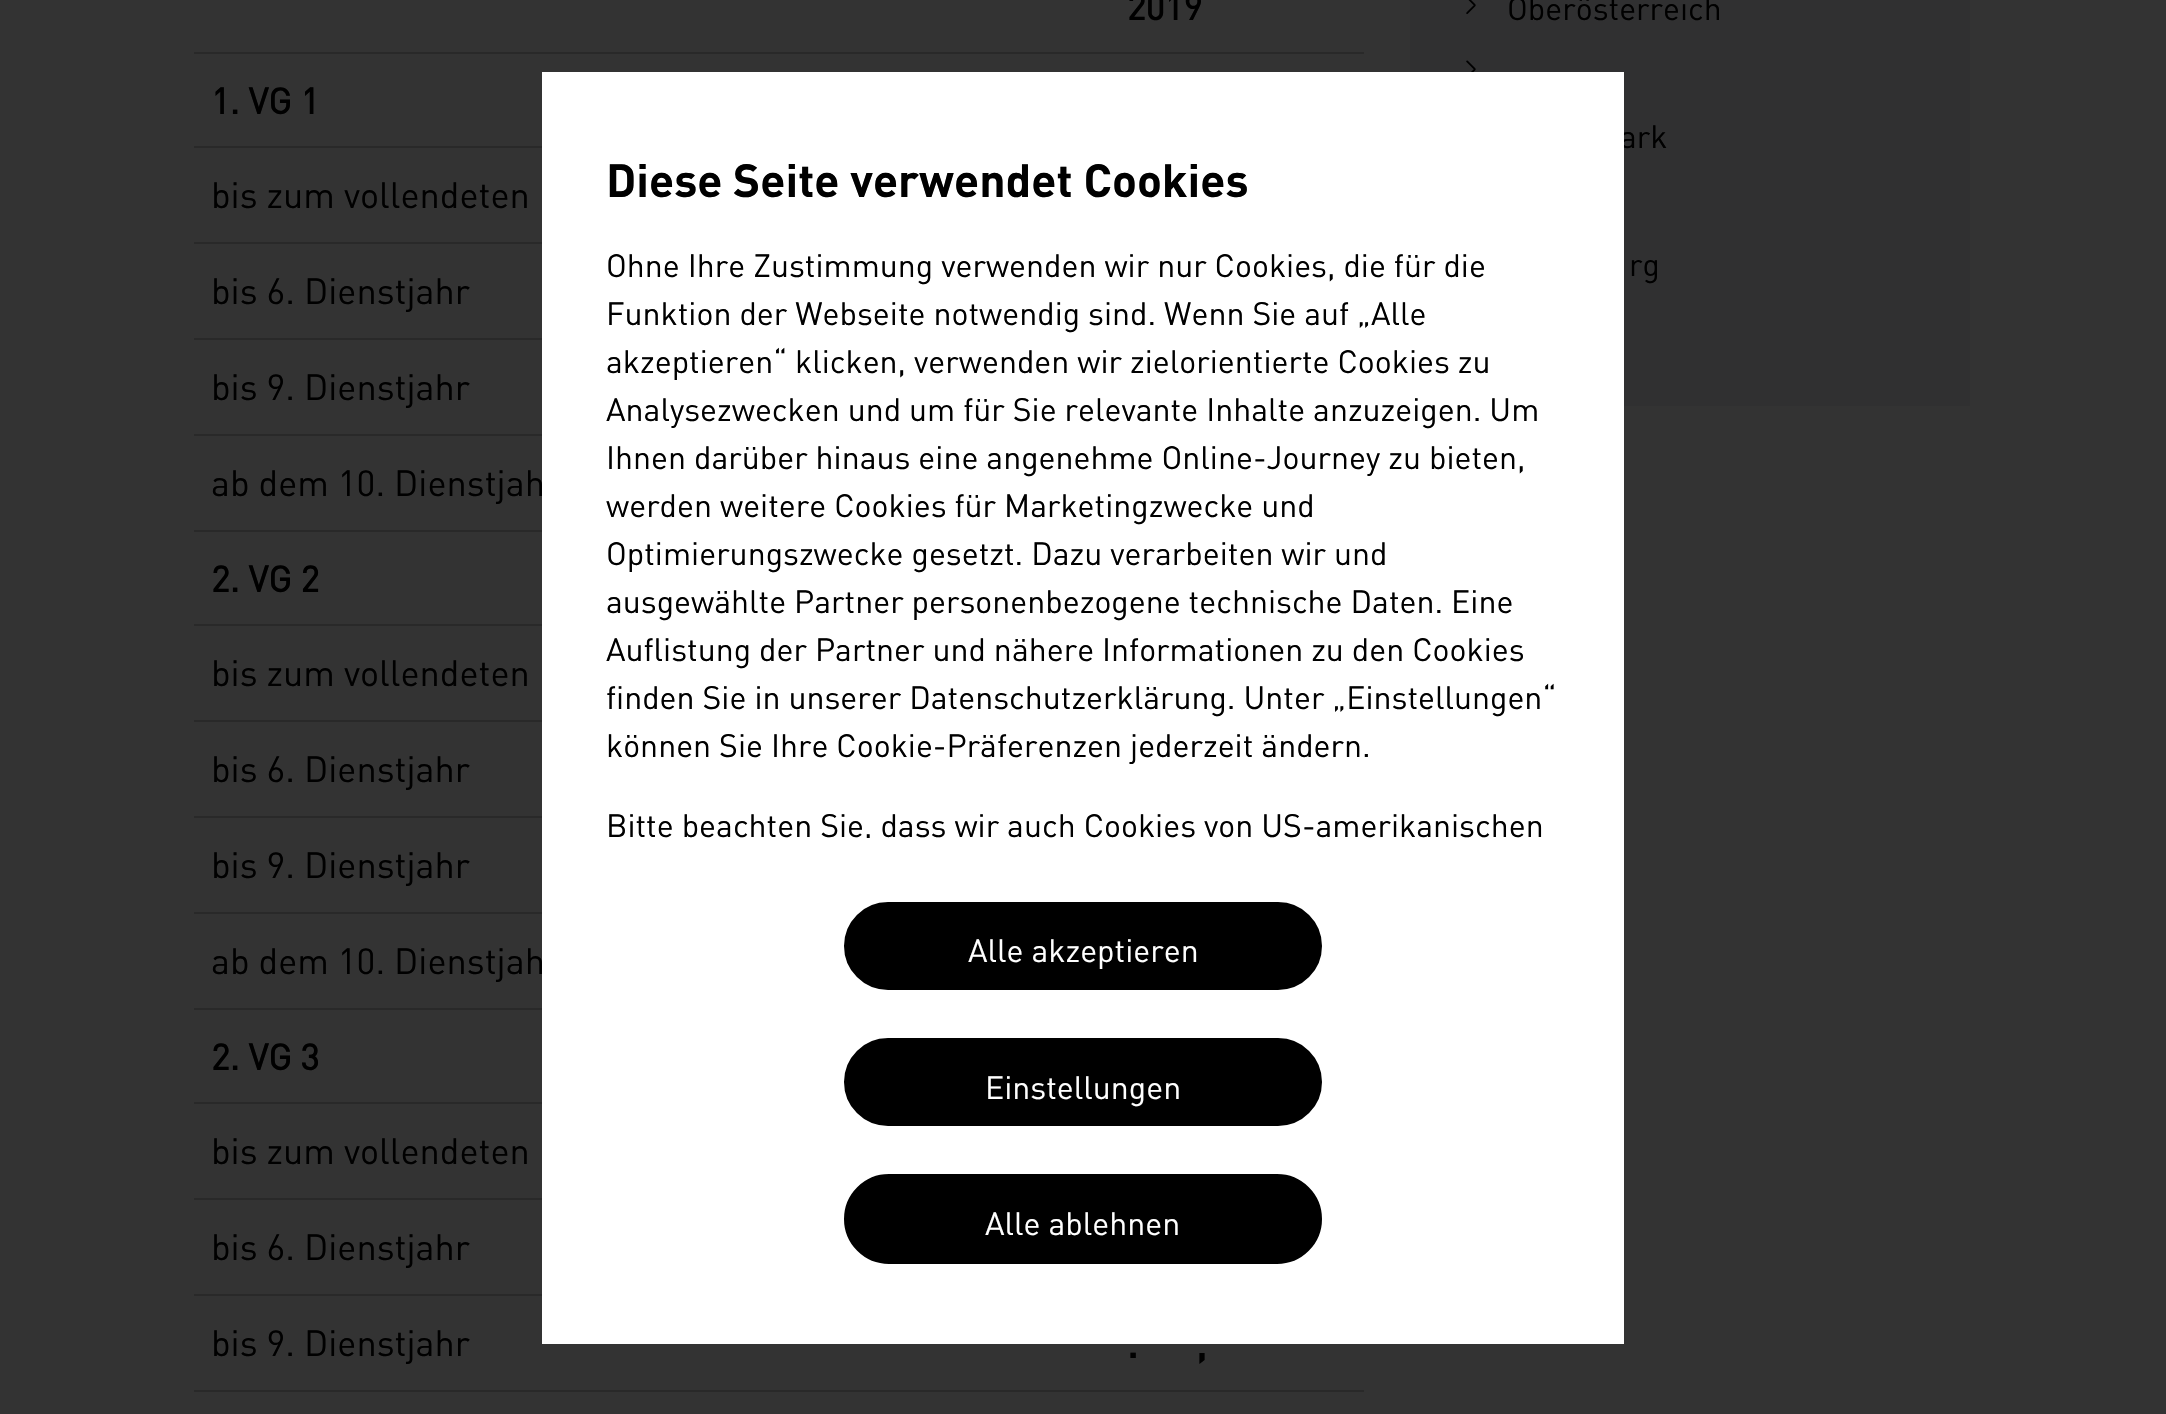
void draw(SkCanvas* canvas) {
	SkPaint fill;
	fill.setAntiAlias(true);
	auto makeFont = [&](const char* family, int weight, float size, bool italic = false) {
		SkFontStyle style(weight, SkFontStyle::kNormal_Width,
			italic ? SkFontStyle::kItalic_Slant : SkFontStyle::kUpright_Slant);
		SkFont result(fontMgr->matchFamilyStyle(family, style), size);
		result.setSubpixel(true);
		return result;
	};
	auto text = [&](const char* s, float x, float y, const SkFont& font) {
		canvas->drawString(s, x, y, font, fill);
	};
	auto box = [&](float l, float t, float r, float b) {
		canvas->drawRect(SkRect::MakeLTRB(l, t, r, b), fill);
	};
	auto picture = [&](const char* path, float l, float t, float r, float b) {
		auto image = SkImages::DeferredFromEncodedData(SkData::MakeFromFileName(path));
		canvas->drawImageRect(image, SkRect::MakeLTRB(l, t, r, b), SkSamplingOptions());
	};
	canvas->clear(0xFF333333);
	fill.setColor(0xFF292929);
	box(194, 52, 1364, 54);
	box(194, 146, 542, 148);
	box(194, 242, 542, 244);
	box(194, 338, 542, 340);
	box(194, 434, 542, 436);
	box(194, 530, 542, 532);
	box(194, 624, 542, 626);
	box(194, 720, 542, 722);
	box(194, 816, 542, 818);
	box(194, 912, 542, 914);
	box(194, 1008, 542, 1010);
	box(194, 1102, 542, 1104);
	box(194, 1198, 542, 1200);
	box(194, 1294, 542, 1296);
	box(194, 1390, 1364, 1392);
	fill.setColor(0xFF303031);
	box(1410, 0, 1970, 406);
	picture("image0.png", 1466, 0, 1476, 14);
	picture("image1.png", 1466, 60, 1476, 72);
	auto font1 = makeFont("DIN", 700, 36);
	fill.setColor(0xFF000000);
	text("2019", 1127, 20, font1);
	text("1. VG 1", 211, 114, font1);
	auto font2 = makeFont("DIN", 400, 36);
	text("bis zum vollendeten", 211, 208, font2);
	text("bis 6. Dienstjahr", 211, 304, font2);
	text("bis 9. Dienstjahr", 211, 400, font2);
	text("ab dem 10. Dienstjah", 211, 496, font2);
	text("2. VG 2", 211, 592, font1);
	text("bis zum vollendeten", 211, 686, font2);
	text("bis 6. Dienstjahr", 211, 782, font2);
	text("bis 9. Dienstjahr", 211, 878, font2);
	text("ab dem 10. Dienstjah", 211, 974, font2);
	text("2. VG 3", 211, 1070, font1);
	text("bis zum vollendeten", 211, 1164, font2);
	text("bis 6. Dienstjahr", 211, 1260, font2);
	text("bis 9. Dienstjahr", 211, 1356, font2);
	auto font3 = makeFont("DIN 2", 700, 36);
	text(".", 1128, 1358, font3);
	text(",", 1197, 1358, font3);
	auto font4 = makeFont("DIN", 400, 32);
	text("Oberösterreich", 1507, 20, font4);
	text("ark", 1620, 148, font4);
	text("rg", 1629, 276, font4);
	fill.setColor(0xFFFFFFFF);
	box(542, 72, 1624, 1344);
	auto font5 = makeFont("DIN 2", 700, 46);
	fill.setColor(0xFF000000);
	text("Diese Seite verwendet Cookies", 606, 197, font5);
	text("Ohne Ihre Zustimmung verwenden wir nur Cookies, die für die", 606, 277, font4);
	text("Funktion der Webseite notwendig sind. Wenn Sie auf „Alle", 606, 325, font4);
	text("akzeptieren“ klicken, verwenden wir zielorientierte Cookies zu", 606, 373, font4);
	text("Analysezwecken und um für Sie relevante Inhalte anzuzeigen. Um", 606, 421, font4);
	text("Ihnen darüber hinaus eine angenehme Online-Journey zu bieten,", 606, 469, font4);
	text("werden weitere Cookies für Marketingzwecke und", 606, 517, font4);
	text("Optimierungszwecke gesetzt. Dazu verarbeiten wir und", 606, 565, font4);
	text("ausgewählte Partner personenbezogene technische Daten. Eine", 606, 613, font4);
	text("Auflistung der Partner und nähere Informationen zu den Cookies", 606, 661, font4);
	text("finden Sie in unserer Datenschutzerklärung. Unter „Einstellungen“", 606, 709, font4);
	text("können Sie Ihre Cookie-Präferenzen jederzeit ändern.", 606, 757, font4);
	text("Bitte beachten Sie, dass wir auch Cookies von US-amerikanischen", 606, 837, font4);
	fill.setColor(0xFFFFFFFF);
	box(866, 838, 870, 842);
	fill.setColor(0xFF000000);
	canvas->drawRoundRect(SkRect::MakeLTRB(845, 903, 1321, 989), 43, 43, fill);
	fill.setStyle(SkPaint::kStroke_Style);
	fill.setStrokeWidth(2);
	canvas->drawRoundRect(SkRect::MakeLTRB(845, 903, 1321, 989), 43, 43, fill);
	fill.setStyle(SkPaint::kFill_Style);
	fill.setColor(0xFFFFFFFF);
	text("Alle akzeptieren", 968, 962, font4);
	fill.setColor(0xFF000000);
	canvas->drawRoundRect(SkRect::MakeLTRB(845, 1039, 1321, 1125), 43, 43, fill);
	fill.setStyle(SkPaint::kStroke_Style);
	canvas->drawRoundRect(SkRect::MakeLTRB(845, 1039, 1321, 1125), 43, 43, fill);
	fill.setStyle(SkPaint::kFill_Style);
	fill.setColor(0xFFFFFFFF);
	text("Einstellungen", 985, 1099, font4);
	fill.setColor(0xFF000000);
	canvas->drawRoundRect(SkRect::MakeLTRB(845, 1175, 1321, 1263), 44, 44, fill);
	fill.setStyle(SkPaint::kStroke_Style);
	canvas->drawRoundRect(SkRect::MakeLTRB(845, 1175, 1321, 1263), 44, 44, fill);
	fill.setStyle(SkPaint::kFill_Style);
	fill.setColor(0xFFFFFFFF);
	text("Alle ablehnen", 985, 1235, font4);
}
